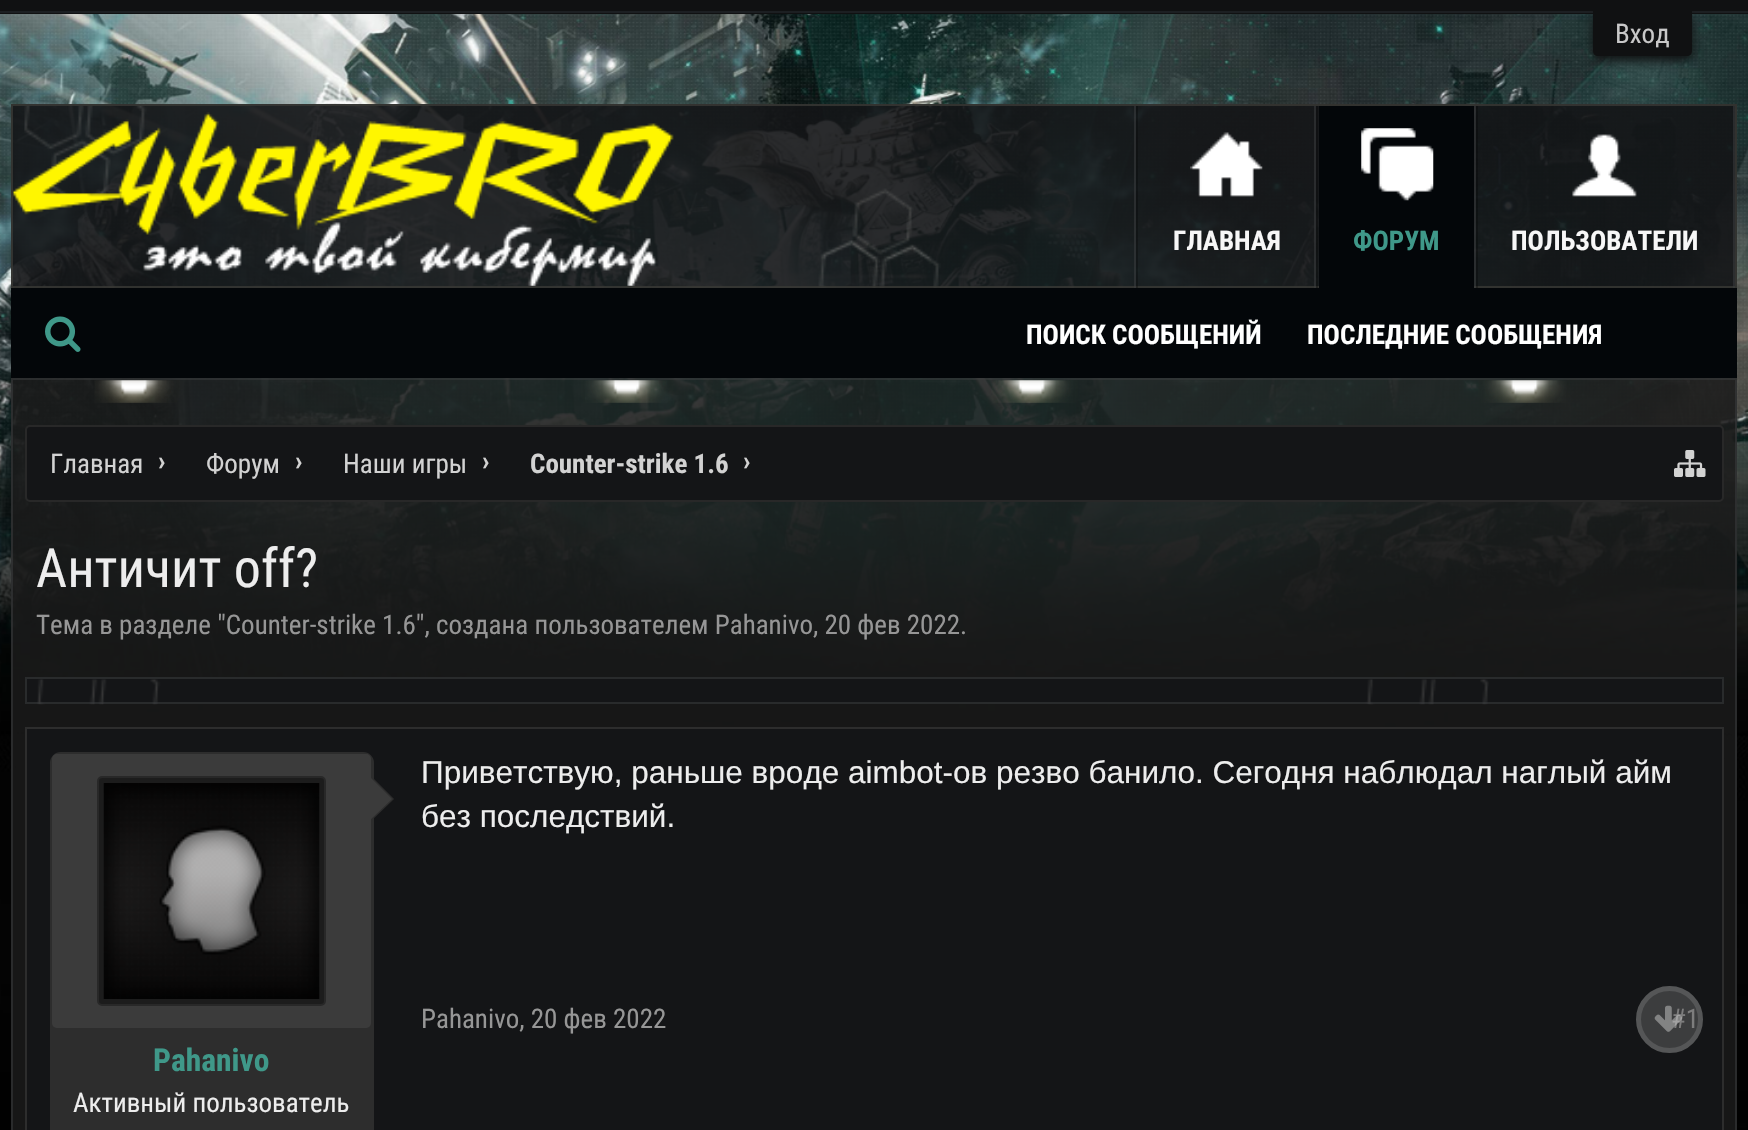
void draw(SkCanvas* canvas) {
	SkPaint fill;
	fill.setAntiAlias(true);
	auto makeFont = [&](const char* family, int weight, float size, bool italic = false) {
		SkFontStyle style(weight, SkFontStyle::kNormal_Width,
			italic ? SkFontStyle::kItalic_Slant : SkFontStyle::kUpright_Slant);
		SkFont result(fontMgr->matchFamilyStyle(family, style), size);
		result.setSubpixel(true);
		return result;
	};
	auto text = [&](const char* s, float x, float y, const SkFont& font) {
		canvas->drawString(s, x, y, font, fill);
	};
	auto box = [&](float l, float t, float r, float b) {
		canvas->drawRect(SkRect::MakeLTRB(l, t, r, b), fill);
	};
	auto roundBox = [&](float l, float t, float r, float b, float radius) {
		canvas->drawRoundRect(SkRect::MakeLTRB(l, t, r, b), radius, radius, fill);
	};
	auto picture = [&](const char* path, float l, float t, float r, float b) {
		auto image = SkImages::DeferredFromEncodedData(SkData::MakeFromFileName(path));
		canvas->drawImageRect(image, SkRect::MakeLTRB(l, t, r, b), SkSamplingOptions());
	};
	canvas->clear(0xFFFFFFFF);
	picture("image0.png", 0, 14, 1748, 1130);
	fill.setColor(0xFF101112);
	box(0, 0, 1748, 14);
	fill.setColor(0xFF1C1F22);
	box(0, 11, 1748, 13);
	fill.setColor(0xFF101112);
	fill.setMaskFilter(SkMaskFilter::MakeBlur(kNormal_SkBlurStyle, 5.5f));
	canvas->drawRoundRect(SkRect::MakeLTRB(1593, 16, 1692, 61), 5, 5, fill);
	fill.setMaskFilter(nullptr);
	canvas->drawPath(SkPathBuilder().moveTo(1593, 11).lineTo(1692, 11).lineTo(1692, 51).cubicTo(1692, 54, 1690, 56, 1687, 56).lineTo(1598, 56).cubicTo(1595, 56, 1593, 54, 1593, 51).close().detach(), fill);
	fill.setColor(0xFF030609);
	box(11, 288, 1737, 378);
	picture("image1.png", 45, 316, 81, 352);
	fill.setColor(0xE6131416);
	box(11, 104, 1737, 288);
	picture("image2.png", 24, 105, 1476, 288);
	fill.setStyle(SkPaint::kStroke_Style);
	fill.setStrokeWidth(2);
	fill.setColor(0xCC383835);
	canvas->drawRect(SkRect::MakeLTRB(12, 105, 1736, 287), fill);
	picture("image3.png", 13, 112, 674, 286);
	fill.setStyle(SkPaint::kFill_Style);
	fill.setColor(0x853B3E40);
	box(1134, 106, 1136, 288);
	box(1474, 106, 1476, 288);
	fill.setColor(0x4D000000);
	box(1316, 106, 1318, 288);
	fill.setColor(0xFF030609);
	box(1319, 106, 1474, 288);
	picture("image4.png", 1361, 128, 1434, 201);
	fill.setColor(0x853B3E40);
	box(1314, 106, 1316, 288);
	fill.setColor(0x4D000000);
	box(1136, 106, 1138, 288);
	picture("image5.png", 1190, 132, 1263, 197);
	fill.setColor(0x853B3E40);
	box(1733, 106, 1735, 288);
	fill.setColor(0x4D000000);
	box(1476, 106, 1478, 288);
	picture("image6.png", 1572, 134, 1637, 197);
	fill.setColor(0xD91A1A1A);
	box(11, 378, 1737, 1130);
	picture("image7.png", 44, 380, 1690, 403);
	fill.setStyle(SkPaint::kStroke_Style);
	fill.setColor(0x853B3E40);
	canvas->drawRect(SkRect::MakeLTRB(12, 379, 1736, 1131), fill);
	fill.setStyle(SkPaint::kFill_Style);
	fill.setColor(0xFF141517);
	canvas->drawRoundRect(SkRect::MakeLTRB(26, 426, 1723, 501), 4, 4, fill);
	fill.setStyle(SkPaint::kStroke_Style);
	fill.setColor(0xFF282828);
	canvas->drawRoundRect(SkRect::MakeLTRB(26, 426, 1723, 501), 4, 4, fill);
	picture("image8.png", 1674, 450, 1706, 477);
	fill.setStyle(SkPaint::kFill_Style);
	fill.setColor(0xFF141517);
	box(25, 677, 1724, 704);
	picture("image9.png", 37, 679, 1489, 705);
	fill.setStyle(SkPaint::kStroke_Style);
	fill.setColor(0x853B3E40);
	canvas->drawRect(SkRect::MakeLTRB(26, 678, 1723, 703), fill);
	fill.setStyle(SkPaint::kFill_Style);
	fill.setColor(0xFF141517);
	canvas->drawRect(SkRect::MakeLTRB(26, 728, 1723, 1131), fill);
	fill.setStyle(SkPaint::kStroke_Style);
	fill.setColor(0xFF2D2D2D);
	canvas->drawRect(SkRect::MakeLTRB(26, 728, 1723, 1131), fill);
	fill.setStyle(SkPaint::kFill_Style);
	canvas->drawRoundRect(SkRect::MakeLTRB(51, 753, 373, 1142), 10, 10, fill);
	fill.setStyle(SkPaint::kStroke_Style);
	canvas->drawRoundRect(SkRect::MakeLTRB(51, 753, 373, 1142), 10, 10, fill);
	fill.setStyle(SkPaint::kFill_Style);
	fill.setColor(0xFF3B3B3B);
	roundBox(52, 754, 371, 1028, 5);
	fill.setColor(0xFF1C1C1C);
	canvas->drawRoundRect(SkRect::MakeLTRB(98, 777, 325, 1005), 4, 4, fill);
	fill.setStyle(SkPaint::kStroke_Style);
	fill.setColor(0xFF282828);
	canvas->drawRoundRect(SkRect::MakeLTRB(98, 777, 325, 1005), 4, 4, fill);
	picture("image10.png", 103, 783, 320, 999);
	fill.setStyle(SkPaint::kFill_Style);
	fill.setColor(0xFF2D2D2D);
	canvas->drawPath(SkPathBuilder().moveTo(371, 821).lineTo(371, 776).lineTo(394, 799).close().detach(), fill);
	fill.setColor(0xFF3B3B3B);
	canvas->drawPath(SkPathBuilder().moveTo(369, 821).lineTo(369, 776).lineTo(392, 799).close().detach(), fill);
	auto font1 = makeFont("Roboto Condensed", 400, 27);
	fill.setColor(0xFFC8C8C8);
	text("Вход", 1615, 43, font1);
	auto font2 = makeFont("Roboto Condensed", 700, 27);
	fill.setColor(0xFF3F9889);
	text("ФОРУМ", 1353, 250, font2);
	fill.setColor(0xFFFFFFFF);
	text("ПОИСК СООБЩЕНИЙ", 1026, 344, font2);
	text("ПОСЛЕДНИЕ СООБЩЕНИЯ", 1307, 344, font2);
	fill.setColor(0xFFF7F7F7);
	text("ГЛАВНАЯ", 1173, 250, font2);
	text("ПОЛЬЗОВАТЕЛИ", 1511, 250, font2);
	fill.setColor(0xFFD2D2D2);
	text("Главная", 50, 473, font1);
	text("›", 158, 470, font2);
	text("Форум", 206, 473, font1);
	text("›", 295, 470, font2);
	text("Наши игры", 343, 473, font1);
	text("›", 482, 470, font2);
	text("Counter-strike 1.6", 530, 473, font2);
	text("›", 743, 470, font2);
	auto font3 = makeFont("Roboto Condensed", 400, 54);
	fill.setColor(0xFFEDEDED);
	text("Античит off?", 36, 587, font3);
	fill.setColor(0xFF969696);
	text("Тема в разделе \"Counter-strike 1.6\", создана пользователем Pahanivo, 20 фев 2022.", 36, 634, font1);
	auto font4 = makeFont("Liberation Sans", 400, 31.5f);
	fill.setColor(0xFFEDEDED);
	text("Приветствую, раньше вроде aimbot-ов резво банило. Сегодня наблюдал наглый айм", 421, 783, font4);
	text("без последствий.", 421, 827, font4);
	fill.setColor(0xFF969696);
	text("Pahanivo, 20 фев 2022", 421, 1028, font1);
	text("#1", 1671, 1028, font1);
	auto font5 = makeFont("Roboto Condensed", 700, 31.5f);
	fill.setColor(0xFF3F9889);
	text("Pahanivo", 153, 1071, font5);
	fill.setColor(0xFFEDEDED);
	text("Активный пользователь", 73, 1112, font1);
	fill.setColor(0x80646464);
	canvas->drawCircle(1669.5f, 1019.5f, 31, fill);
	fill.setStyle(SkPaint::kStroke_Style);
	fill.setStrokeWidth(5);
	fill.setColor(0xFF555657);
	canvas->drawCircle(1669.5f, 1019.5f, 31, fill);
	picture("image11.png", 1654, 1005, 1682, 1032);
}
